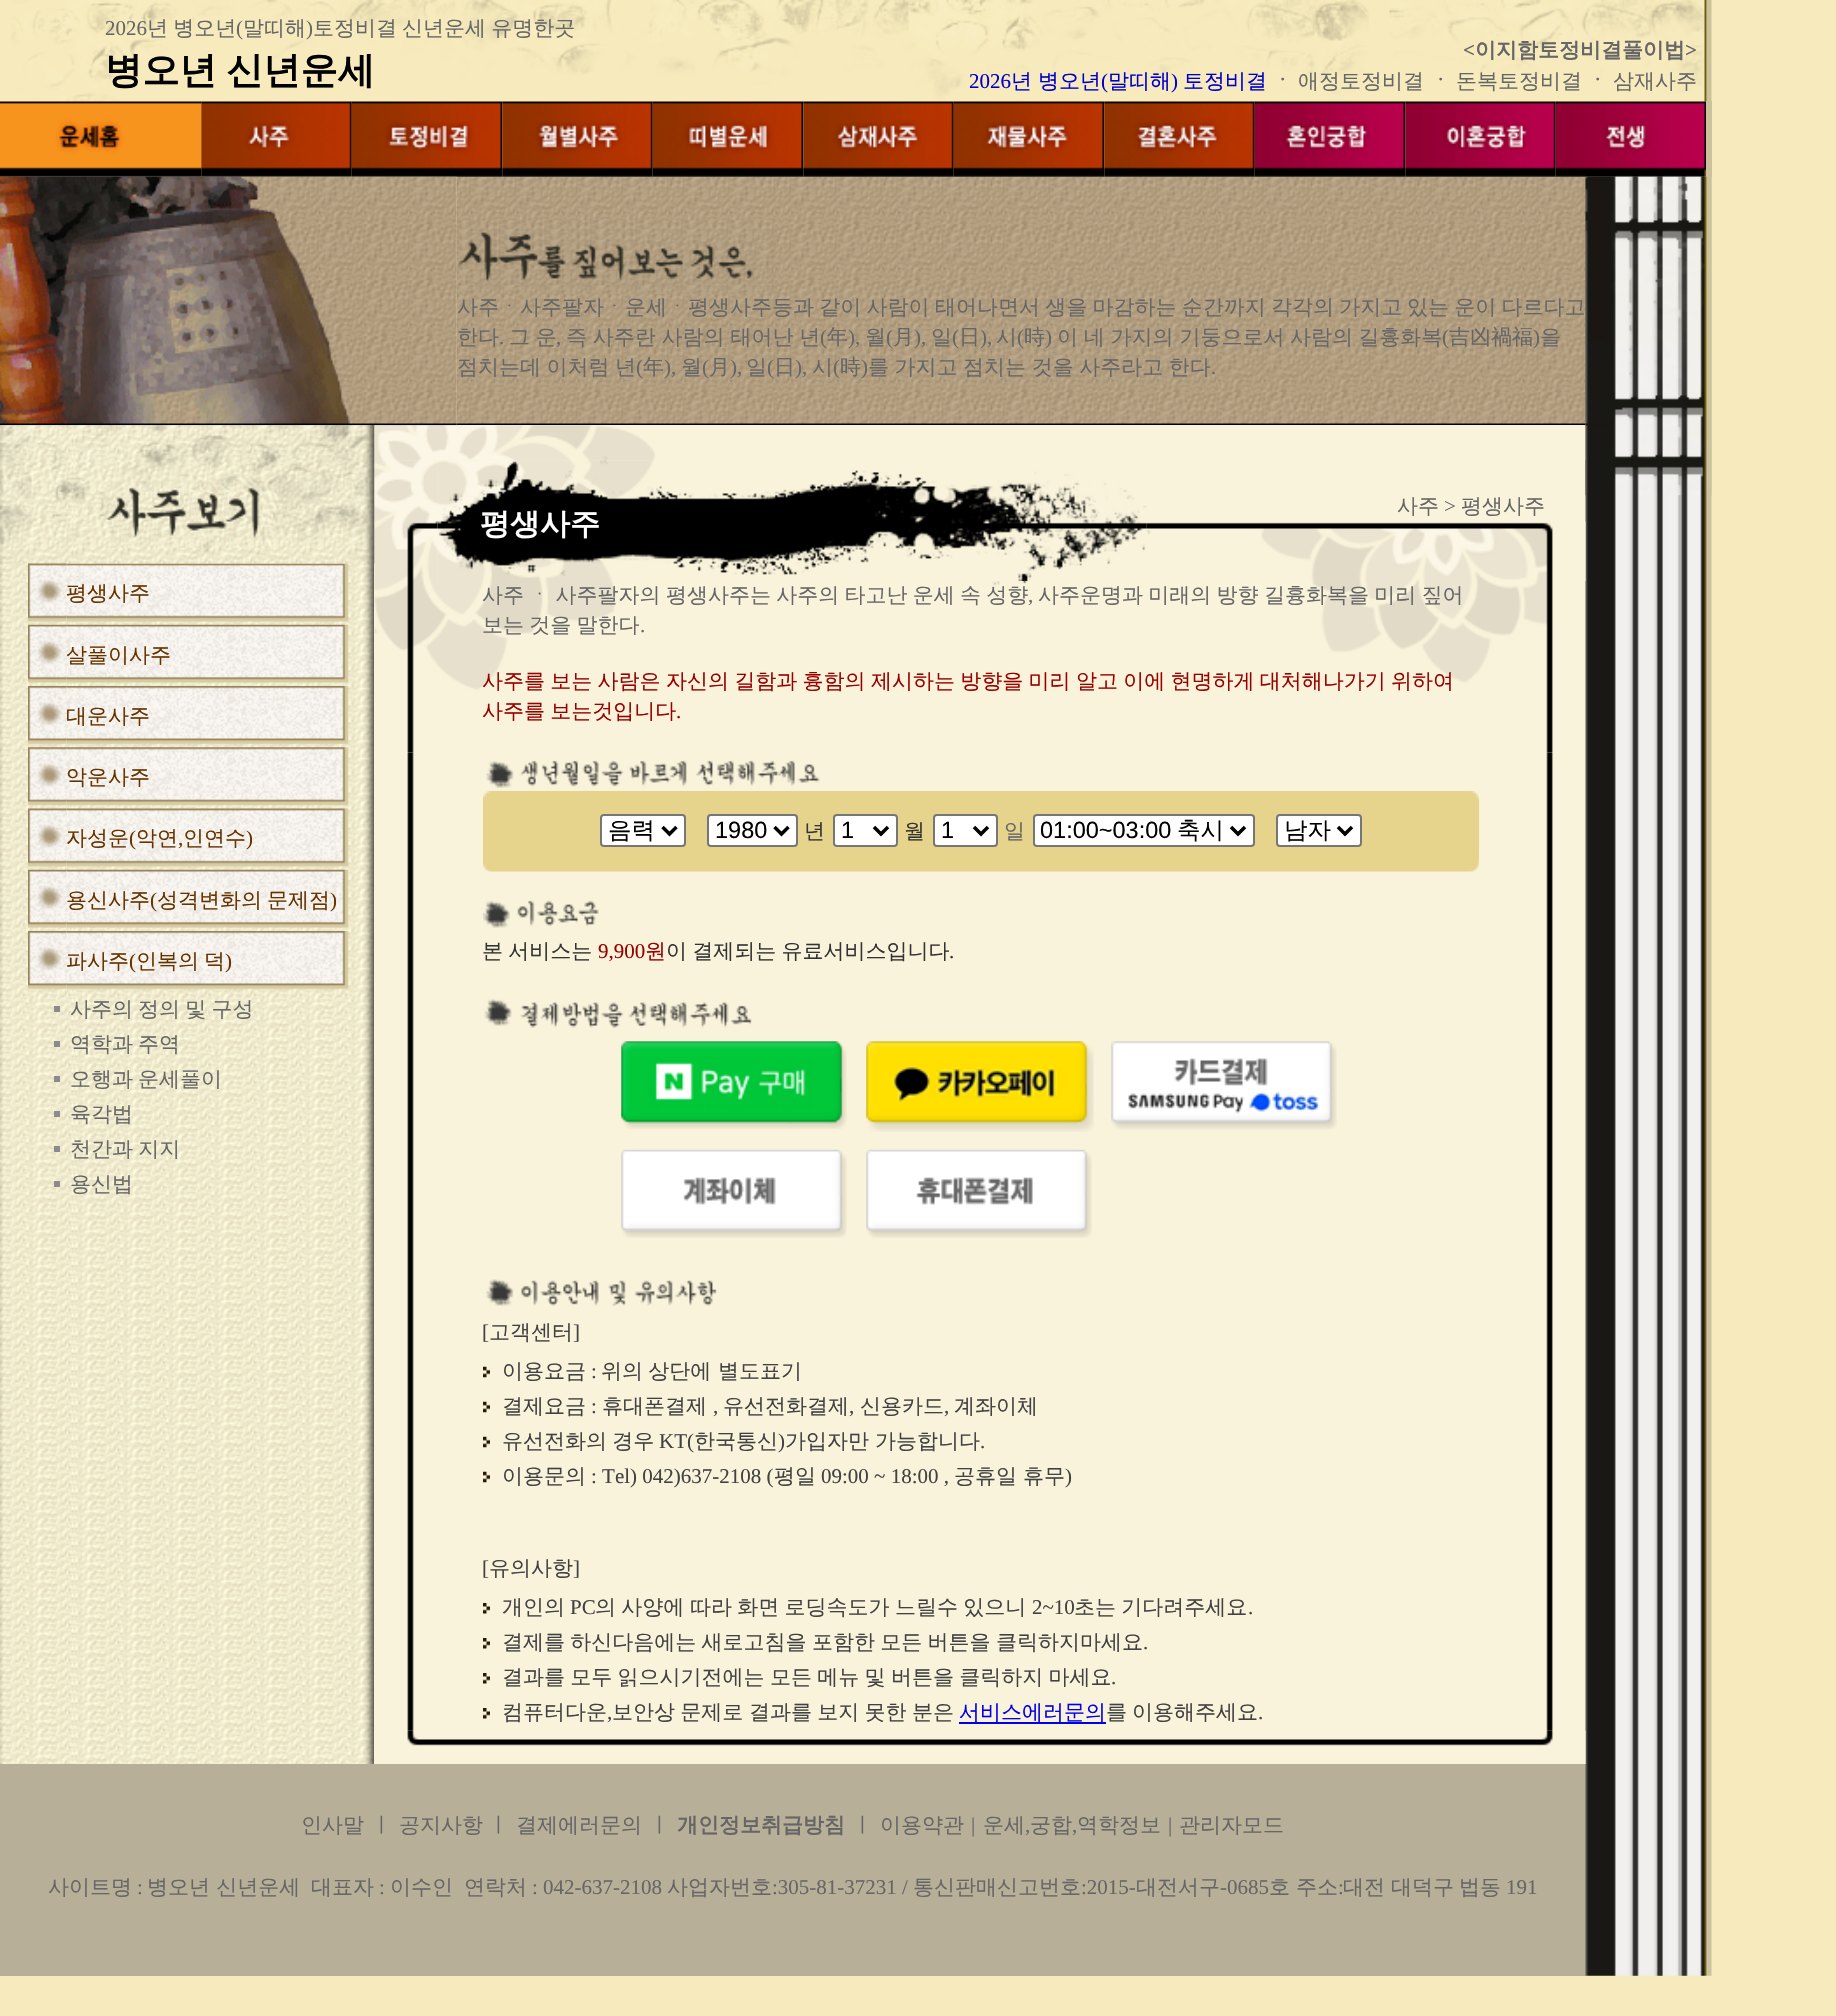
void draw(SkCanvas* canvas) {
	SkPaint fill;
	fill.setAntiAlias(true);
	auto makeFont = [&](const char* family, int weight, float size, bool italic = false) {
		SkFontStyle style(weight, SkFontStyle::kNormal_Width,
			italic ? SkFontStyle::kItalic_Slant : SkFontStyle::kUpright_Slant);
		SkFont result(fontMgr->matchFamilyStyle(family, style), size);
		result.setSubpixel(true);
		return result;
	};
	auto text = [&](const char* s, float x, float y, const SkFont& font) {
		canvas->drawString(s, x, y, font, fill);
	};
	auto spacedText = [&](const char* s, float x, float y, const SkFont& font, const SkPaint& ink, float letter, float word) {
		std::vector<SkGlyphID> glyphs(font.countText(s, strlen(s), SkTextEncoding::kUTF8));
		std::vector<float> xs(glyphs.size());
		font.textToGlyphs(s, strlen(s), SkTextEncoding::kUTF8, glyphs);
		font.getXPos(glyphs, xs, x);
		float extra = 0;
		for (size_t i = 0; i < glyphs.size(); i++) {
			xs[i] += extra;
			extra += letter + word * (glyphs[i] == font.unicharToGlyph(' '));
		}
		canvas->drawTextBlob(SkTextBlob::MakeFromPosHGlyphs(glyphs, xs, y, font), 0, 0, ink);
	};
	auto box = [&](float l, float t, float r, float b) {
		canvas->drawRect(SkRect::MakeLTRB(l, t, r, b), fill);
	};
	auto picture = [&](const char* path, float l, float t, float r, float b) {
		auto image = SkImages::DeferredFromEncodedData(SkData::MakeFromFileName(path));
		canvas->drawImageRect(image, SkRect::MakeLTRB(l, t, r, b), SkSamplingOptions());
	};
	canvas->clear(0xFFF7EBBD);
	picture("image0.png", 11, 0, 1712, 102);
	picture("image1.png", 0, 101, 202, 177);
	picture("image2.png", 201, 101, 352, 177);
	picture("image13.png", 456, 176, 1586, 425);
	picture("image3.png", 351, 101, 503, 177);
	picture("image4.png", 502, 101, 653, 177);
	picture("image5.png", 652, 101, 804, 177);
	picture("image6.png", 803, 101, 954, 177);
	picture("image7.png", 953, 101, 1105, 177);
	picture("image8.png", 1104, 101, 1255, 177);
	picture("image9.png", 1254, 101, 1406, 177);
	picture("image10.png", 1405, 101, 1556, 177);
	fill.setColor(0xFFF9F3DB);
	box(374, 425, 1586, 1764);
	fill.setColor(0xFFB7AF97);
	box(0, 1764, 1586, 1976);
	picture("image50.png", 1585, 176, 1712, 1976);
	picture("image11.png", 1555, 101, 1706, 177);
	fill.setColor(0xFFCBC29C);
	box(1706, 101, 1712, 177);
	picture("image15.png", 0, 425, 374, 1764);
	picture("image12.png", 0, 176, 457, 426);
	picture("image14.png", 456, 220, 774, 294);
	picture("image18.png", 66, 563, 349, 622);
	picture("image16.png", 0, 425, 375, 564);
	picture("image17.png", 28, 563, 67, 622);
	picture("image20.png", 66, 624, 349, 683);
	picture("image19.png", 28, 624, 67, 683);
	picture("image22.png", 66, 686, 349, 745);
	picture("image21.png", 28, 686, 67, 745);
	picture("image24.png", 66, 747, 349, 806);
	picture("image23.png", 28, 747, 67, 806);
	picture("image26.png", 66, 808, 349, 867);
	picture("image25.png", 28, 808, 67, 867);
	picture("image27.png", 66, 869, 349, 928);
	picture("image19.png", 28, 869, 67, 928);
	picture("image29.png", 66, 931, 349, 990);
	picture("image28.png", 28, 931, 67, 990);
	fill.setColor(0xFF8C8A8C);
	box(54, 1006, 60, 1012);
	box(54, 1041, 60, 1047);
	box(54, 1076, 60, 1082);
	box(54, 1111, 60, 1117);
	box(54, 1146, 60, 1152);
	box(54, 1181, 60, 1187);
	picture("image33.png", 437, 460, 1147, 581);
	picture("image30.png", 374, 425, 1586, 461);
	picture("image31.png", 374, 460, 438, 581);
	picture("image32.png", 1146, 521, 1586, 581);
	picture("image34.png", 374, 581, 1553, 753);
	picture("image35.png", 407, 752, 1553, 1731);
	picture("image36.png", 486, 760, 820, 788);
	fill.setColor(0xFFE6D48C);
	box(483, 799, 1479, 861);
	picture("image37.png", 483, 791, 1479, 800);
	fill.setColor(0xFFFFFFFF);
	canvas->drawRoundRect(SkRect::MakeLTRB(601, 815, 685, 846), 3, 3, fill);
	fill.setStyle(SkPaint::kStroke_Style);
	fill.setStrokeWidth(2);
	fill.setColor(0xFF767676);
	canvas->drawRoundRect(SkRect::MakeLTRB(601, 815, 685, 846), 3, 3, fill);
	fill.setStrokeWidth(3.5f);
	fill.setColor(0xFF000000);
	canvas->drawPath(SkPathBuilder().moveTo(662.5f, 827).lineTo(669.5f, 834).lineTo(676.5f, 827).detach(), fill);
	fill.setStyle(SkPaint::kFill_Style);
	fill.setColor(0xFFFFFFFF);
	canvas->drawRoundRect(SkRect::MakeLTRB(708, 815, 797, 846), 3, 3, fill);
	fill.setStyle(SkPaint::kStroke_Style);
	fill.setStrokeWidth(2);
	fill.setColor(0xFF767676);
	canvas->drawRoundRect(SkRect::MakeLTRB(708, 815, 797, 846), 3, 3, fill);
	fill.setStrokeWidth(3.5f);
	fill.setColor(0xFF000000);
	canvas->drawPath(SkPathBuilder().moveTo(774.5f, 827).lineTo(781.5f, 834).lineTo(788.5f, 827).detach(), fill);
	fill.setStyle(SkPaint::kFill_Style);
	fill.setColor(0xFFFFFFFF);
	canvas->drawRoundRect(SkRect::MakeLTRB(834, 815, 897, 846), 3, 3, fill);
	fill.setStyle(SkPaint::kStroke_Style);
	fill.setStrokeWidth(2);
	fill.setColor(0xFF767676);
	canvas->drawRoundRect(SkRect::MakeLTRB(834, 815, 897, 846), 3, 3, fill);
	fill.setStrokeWidth(3.5f);
	fill.setColor(0xFF000000);
	canvas->drawPath(SkPathBuilder().moveTo(874, 827).lineTo(881, 834).lineTo(888, 827).detach(), fill);
	fill.setStyle(SkPaint::kFill_Style);
	fill.setColor(0xFFFFFFFF);
	canvas->drawRoundRect(SkRect::MakeLTRB(934, 815, 997, 846), 3, 3, fill);
	fill.setStyle(SkPaint::kStroke_Style);
	fill.setStrokeWidth(2);
	fill.setColor(0xFF767676);
	canvas->drawRoundRect(SkRect::MakeLTRB(934, 815, 997, 846), 3, 3, fill);
	fill.setStrokeWidth(3.5f);
	fill.setColor(0xFF000000);
	canvas->drawPath(SkPathBuilder().moveTo(974, 827).lineTo(981, 834).lineTo(988, 827).detach(), fill);
	fill.setStyle(SkPaint::kFill_Style);
	fill.setColor(0xFFFFFFFF);
	canvas->drawRoundRect(SkRect::MakeLTRB(1034, 815, 1254, 846), 3, 3, fill);
	fill.setStyle(SkPaint::kStroke_Style);
	fill.setStrokeWidth(2);
	fill.setColor(0xFF767676);
	canvas->drawRoundRect(SkRect::MakeLTRB(1034, 815, 1254, 846), 3, 3, fill);
	fill.setStrokeWidth(3.5f);
	fill.setColor(0xFF000000);
	canvas->drawPath(SkPathBuilder().moveTo(1231, 827).lineTo(1238, 834).lineTo(1245, 827).detach(), fill);
	fill.setStyle(SkPaint::kFill_Style);
	fill.setColor(0xFFFFFFFF);
	canvas->drawRoundRect(SkRect::MakeLTRB(1277, 815, 1361, 846), 3, 3, fill);
	fill.setStyle(SkPaint::kStroke_Style);
	fill.setStrokeWidth(2);
	fill.setColor(0xFF767676);
	canvas->drawRoundRect(SkRect::MakeLTRB(1277, 815, 1361, 846), 3, 3, fill);
	fill.setStrokeWidth(3.5f);
	fill.setColor(0xFF000000);
	canvas->drawPath(SkPathBuilder().moveTo(1338, 827).lineTo(1345, 834).lineTo(1352, 827).detach(), fill);
	picture("image38.png", 483, 861, 1479, 872);
	picture("image39.png", 483, 900, 599, 928);
	picture("image40.png", 484, 999, 752, 1028);
	picture("image41.png", 621, 1041, 847, 1129);
	picture("image42.png", 866, 1041, 1094, 1132);
	picture("image43.png", 1111, 1041, 1337, 1130);
	picture("image44.png", 621, 1149, 847, 1238);
	picture("image45.png", 866, 1149, 1092, 1238);
	picture("image46.png", 486, 1279, 717, 1306);
	picture("image47.png", 483, 1366, 490, 1378);
	picture("image47.png", 483, 1401, 490, 1413);
	picture("image47.png", 483, 1436, 490, 1448);
	picture("image47.png", 483, 1471, 490, 1483);
	picture("image48.png", 483, 1603, 490, 1614);
	picture("image48.png", 483, 1638, 490, 1649);
	picture("image48.png", 483, 1673, 490, 1684);
	picture("image48.png", 483, 1708, 490, 1719);
	fill.setStyle(SkPaint::kFill_Style);
	fill.setColor(0xFF0000EE);
	box(959, 1722, 1106, 1724);
	picture("image49.png", 407, 1730, 1586, 1764);
	picture("image51.png", 1585, 176, 1712, 496);
	auto font1 = makeFont("Liberation Serif", 400, 21);
	fill.setColor(0xFF666666);
	text("2026", 105, 35, font1);
	auto font2 = makeFont("WenQuanYi Zen Hei", 500, 21);
	spacedText("년 병오년", 147, 35, font2, fill, 0, -1);
	text("(", 236, 35, font1);
	text("말띠해", 243, 35, font2);
	text(")", 306, 35, font1);
	text("토정비결", 313, 35, font2);
	spacedText("신년운세 유명한곳", 402, 35, font2, fill, 0, -1);
	auto font3 = makeFont("WenQuanYi Zen Hei", 700, 37.25f);
	fill.setColor(0xFF000000);
	spacedText("병오년 신년운세", 105, 83, font3, fill, 0, -2);
	auto font4 = makeFont("Liberation Serif", 700, 21);
	fill.setColor(0xFF666666);
	text("<", 1463, 57, font4);
	auto font5 = makeFont("WenQuanYi Zen Hei", 700, 21);
	text("이지함토정비결풀이법", 1475, 57, font5);
	text(">", 1685, 57, font4);
	fill.setColor(0xFF0000CC);
	text("2026", 969, 88, font1);
	text("년", 1011, 88, font2);
	text("병오년", 1038, 88, font2);
	text("(", 1101, 88, font1);
	text("말띠해", 1108, 88, font2);
	text(")", 1171, 88, font1);
	text("토정비결", 1183, 88, font2);
	fill.setColor(0xFF666666);
	text("ㆍ", 1272, 88, font5);
	text("애정토정비결", 1298, 88, font2);
	text("ㆍ", 1430, 88, font5);
	text("돈복토정비결", 1456, 88, font2);
	text("ㆍ", 1587, 88, font5);
	text("삼재사주", 1613, 88, font2);
	spacedText("사주ㆍ사주팔자ㆍ운세ㆍ평생사주등과 같이 사람이 태어나면서 생을 마감하는 순간까지 각각의 가지고", 457, 314, font2, fill, 0, -1);
	spacedText("있는 운이 다르다고", 1407, 314, font2, fill, 0, -1);
	text("한다", 457, 344, font2);
	text(".", 499, 344, font1);
	spacedText("그 운", 509, 344, font2, fill, 0, -0.5f);
	text(",", 556, 344, font1);
	spacedText("즉 사주란 사람의 태어난 년", 566, 344, font2, fill, 0, -0.5f);
	text("(", 820, 344, font1);
	text("年", 827, 344, font2);
	text("),", 848, 344, font1);
	text("월", 865, 344, font2);
	text("(", 886, 344, font1);
	text("月", 893, 344, font2);
	text("),", 914, 344, font1);
	text("일", 931, 344, font2);
	text("(", 952, 344, font1);
	text("日", 959, 344, font2);
	text("),", 980, 344, font1);
	text("시", 996, 344, font2);
	text("(", 1017, 344, font1);
	text("時", 1024, 344, font2);
	text(")", 1045, 344, font1);
	spacedText("이 네 가지의 기둥으로서", 1057, 344, font2, fill, 0, -0.5f);
	spacedText("사람의 길흉화복", 1290, 344, font2, fill, 0, -1);
	text("(", 1442, 344, font1);
	text("吉凶禍福", 1449, 344, font2);
	text(")", 1533, 344, font1);
	text("을", 1540, 344, font2);
	spacedText("점치는데 이처럼 년", 457, 374, font2, fill, 0, -0.75f);
	text("(", 636, 374, font1);
	text("年", 643, 374, font2);
	text("),", 664, 374, font1);
	text("월", 681, 374, font2);
	text("(", 702, 374, font1);
	text("月", 709, 374, font2);
	text("),", 730, 374, font1);
	text("일", 746, 374, font2);
	text("(", 767, 374, font1);
	text("日", 774, 374, font2);
	text("),", 795, 374, font1);
	text("시", 812, 374, font2);
	text("(", 833, 374, font1);
	text("時", 840, 374, font2);
	text(")", 861, 374, font1);
	spacedText("를 가지고 점치는 것을 사주라고 한다", 868, 374, font2, fill, 0, -0.75f);
	text(".", 1211, 374, font1);
	fill.setColor(0xFF663300);
	text("평생사주", 66, 600, font2);
	text("살풀이사주", 66, 662, font2);
	text("대운사주", 66, 723, font2);
	text("악운사주", 66, 784, font2);
	text("자성운", 66, 845, font2);
	text("(", 129, 845, font1);
	text("악연", 136, 845, font2);
	text(",", 178, 845, font1);
	text("인연수", 183, 845, font2);
	text(")", 246, 845, font1);
	text("용신사주", 66, 907, font2);
	text("(", 150, 907, font1);
	text("성격변화의", 157, 907, font2);
	text("문제점", 267, 907, font2);
	text(")", 330, 907, font1);
	text("파사주", 66, 968, font2);
	text("(", 129, 968, font1);
	text("인복의", 136, 968, font2);
	text("덕", 204, 968, font2);
	text(")", 225, 968, font1);
	fill.setColor(0xFF666666);
	text("사주의", 70, 1016, font2);
	spacedText("정의 및 구성", 138, 1016, font2, fill, 0, -1);
	text("역학과", 70, 1051, font2);
	text("주역", 138, 1051, font2);
	text("오행과", 70, 1086, font2);
	text("운세풀이", 138, 1086, font2);
	text("육각법", 70, 1121, font2);
	spacedText("천간과 지지", 70, 1156, font2, fill, 0, -1);
	text("용신법", 70, 1191, font2);
	text("사주", 1397, 513, font2);
	text(">", 1444, 513, font1);
	text("평생사주", 1461, 513, font2);
	auto font6 = makeFont("WenQuanYi Zen Hei", 700, 30);
	fill.setColor(0xFFFFFFFF);
	text("평생사주", 480, 534, font6);
	fill.setColor(0xFF666666);
	spacedText("사주 ㆍ 사주팔자의 평생사주는 사주의 타고난 운세", 482, 602, font2, fill, 0, -1);
	spacedText("속 성향", 960, 602, font2, fill, 0, -1);
	text(",", 1028, 602, font1);
	spacedText("사주운명과 미래의 방향 길흉화복을 미리 짚어", 1038, 602, font2, fill, 0, -1);
	spacedText("보는 것을 말한다", 482, 632, font2, fill, 0, -1);
	text(".", 640, 632, font1);
	fill.setColor(0xFF990000);
	spacedText("사주를 보는 사람은 자신의 길함과 흉함의", 482, 688, font2, fill, 0, -1);
	spacedText("제시하는 방향을 미리 알고 이에 현명하게 대처해나가기 위하여", 871, 688, font2, fill, 0, -1);
	spacedText("사주를 보는것입니다", 482, 718, font2, fill, 0, -1);
	text(".", 676, 718, font1);
	auto font7 = makeFont("WenQuanYi Zen Hei", 500, 23.5f);
	fill.setColor(0xFF000000);
	text("음력", 608, 838, font7);
	auto font8 = makeFont("Liberation Sans", 400, 23.5f);
	text("1980", 715, 838, font8);
	fill.setColor(0xFF333333);
	text("년", 804, 838, font2);
	fill.setColor(0xFF000000);
	text("1", 841, 838, font8);
	fill.setColor(0xFF333333);
	text("월", 904, 838, font2);
	fill.setColor(0xFF000000);
	text("1", 941, 838, font8);
	fill.setColor(0xFF666666);
	text("일", 1004, 838, font2);
	fill.setColor(0xFF000000);
	text("01:00~03:00", 1040, 838, font8);
	text("축시", 1177, 838, font7);
	text("남자", 1284, 838, font7);
	fill.setColor(0xFF333333);
	spacedText("본 서비스는", 482, 958, font2, fill, 0, -1);
	fill.setColor(0xFF990000);
	text("9,900", 598, 958, font1);
	text("원", 645, 958, font2);
	fill.setColor(0xFF333333);
	spacedText("이 결제되는 유료서비스입니다", 666, 958, font2, fill, 0, -1);
	text(".", 949, 958, font1);
	fill.setColor(0xFF414141);
	text("[", 482, 1339, font1);
	text("고객센터", 489, 1339, font2);
	text("]", 573, 1339, font1);
	text("이용요금", 502, 1378, font2);
	text(":", 591, 1378, font1);
	spacedText("위의 상단에", 601, 1378, font2, fill, 0, -1);
	text("별도표기", 718, 1378, font2);
	text("결제요금", 502, 1413, font2);
	text(":", 591, 1413, font1);
	text("휴대폰결제", 602, 1413, font2);
	text(",", 713, 1413, font1);
	text("유선전화결제", 723, 1413, font2);
	text(",", 849, 1413, font1);
	text("신용카드", 860, 1413, font2);
	text(",", 944, 1413, font1);
	text("계좌이체", 954, 1413, font2);
	spacedText("유선전화의 경우", 502, 1448, font2, fill, 0, -1);
	text("KT(", 659, 1448, font1);
	text("한국통신", 694, 1448, font2);
	text(")", 778, 1448, font1);
	text("가입자만", 785, 1448, font2);
	text("가능합니다", 875, 1448, font2);
	text(".", 980, 1448, font1);
	text("이용문의", 502, 1483, font2);
	text(": Tel) 042)637-2108 (", 591, 1483, font1);
	text("평일", 774, 1483, font2);
	text("09:00 ~ 18:00 ,", 821, 1483, font1);
	text("공휴일", 954, 1483, font2);
	text("휴무", 1023, 1483, font2);
	text(")", 1065, 1483, font1);
	text("[", 482, 1575, font1);
	text("유의사항", 489, 1575, font2);
	text("]", 573, 1575, font1);
	text("개인의", 502, 1614, font2);
	text("PC", 570, 1614, font1);
	spacedText("의 사양에", 595, 1614, font2, fill, 0, -1);
	spacedText("따라 화면 로딩속도가 느릴수 있으니", 690, 1614, font2, fill, 0, -1);
	text("2~10", 1032, 1614, font1);
	spacedText("초는 기다려주세요", 1074, 1614, font2, fill, 0, -1);
	text(".", 1248, 1614, font1);
	spacedText("결제를 하신다음에는 새로고침을", 502, 1649, font2, fill, 0, -1);
	spacedText("포함한 모든 버튼을 클릭하지마세요", 812, 1649, font2, fill, 0, -1);
	text(".", 1143, 1649, font1);
	spacedText("결과를 모두 읽으시기전에는", 502, 1684, font2, fill, 0, -1);
	spacedText("모든 메뉴 및 버튼을 클릭하지 마세요", 770, 1684, font2, fill, 0, -1);
	text(".", 1111, 1684, font1);
	text("컴퓨터다운", 502, 1719, font2);
	text(",", 607, 1719, font1);
	spacedText("보안상 문제로", 612, 1719, font2, fill, 0, -1);
	spacedText("결과를 보지 못한 분은", 749, 1719, font2, fill, 0, -1);
	fill.setColor(0xFF0000EE);
	text("서비스에러문의", 959, 1719, font2);
	fill.setColor(0xFF414141);
	text("를", 1106, 1719, font2);
	text("이용해주세요", 1132, 1719, font2);
	text(".", 1258, 1719, font1);
	fill.setColor(0xFF666666);
	text("인사말", 301, 1832, font2);
	text("ㅣ", 371, 1832, font2);
	text("공지사항", 399, 1832, font2);
	text("ㅣ", 488, 1832, font2);
	text("결제에러문의", 516, 1832, font2);
	text("ㅣ", 649, 1832, font2);
	text("개인정보취급방침", 677, 1832, font5);
	text("ㅣ", 852, 1832, font2);
	text("이용약관", 880, 1832, font2);
	text("|", 971, 1832, font1);
	text("운세", 983, 1832, font2);
	text(",", 1025, 1832, font1);
	text("궁합", 1030, 1832, font2);
	text(",", 1072, 1832, font1);
	text("역학정보", 1077, 1832, font2);
	text("|", 1168, 1832, font1);
	text("관리자모드", 1179, 1832, font2);
	text("사이트명", 48, 1894, font2);
	text(":", 137, 1894, font1);
	text("병오년 신년운세", 147, 1894, font2);
	text("대표자", 311, 1894, font2);
	text(":", 379, 1894, font1);
	text("이수인", 390, 1894, font2);
	text("연락처", 464, 1894, font2);
	text(": 042-637-2108", 532, 1894, font1);
	text("사업자번호", 667, 1894, font2);
	text(":305-81-37231 /", 772, 1894, font1);
	text("통신판매신고번호", 913, 1894, font2);
	text(":2015-", 1081, 1894, font1);
	text("대전서구", 1136, 1894, font2);
	text("-0685", 1220, 1894, font1);
	text("호", 1269, 1894, font2);
	text("주소", 1296, 1894, font2);
	text(":", 1338, 1894, font1);
	text("대전", 1343, 1894, font2);
	text("대덕구", 1391, 1894, font2);
	text("법동", 1459, 1894, font2);
	text("191", 1506, 1894, font1);
}
